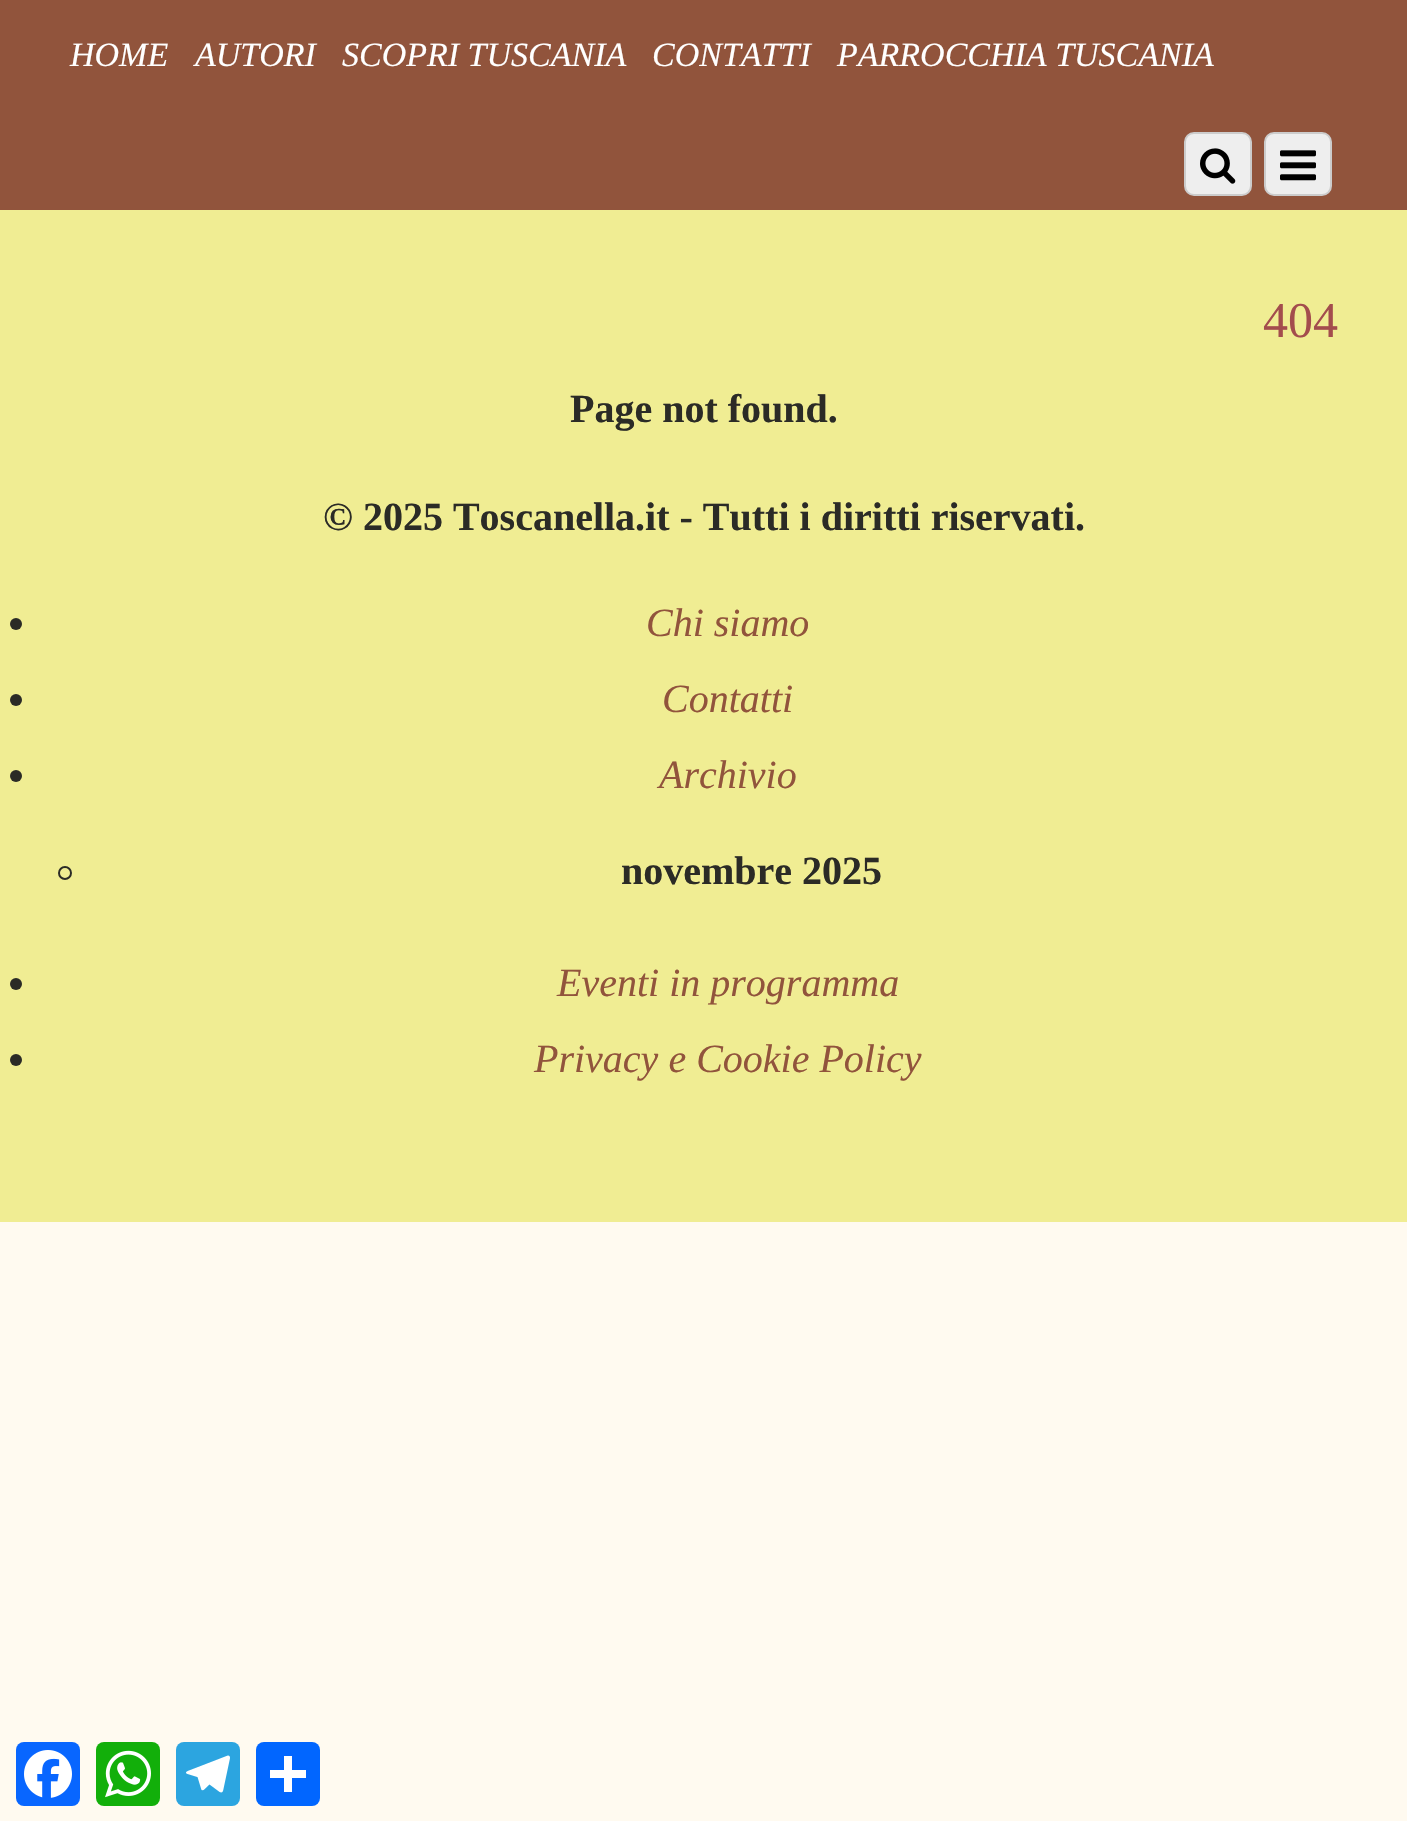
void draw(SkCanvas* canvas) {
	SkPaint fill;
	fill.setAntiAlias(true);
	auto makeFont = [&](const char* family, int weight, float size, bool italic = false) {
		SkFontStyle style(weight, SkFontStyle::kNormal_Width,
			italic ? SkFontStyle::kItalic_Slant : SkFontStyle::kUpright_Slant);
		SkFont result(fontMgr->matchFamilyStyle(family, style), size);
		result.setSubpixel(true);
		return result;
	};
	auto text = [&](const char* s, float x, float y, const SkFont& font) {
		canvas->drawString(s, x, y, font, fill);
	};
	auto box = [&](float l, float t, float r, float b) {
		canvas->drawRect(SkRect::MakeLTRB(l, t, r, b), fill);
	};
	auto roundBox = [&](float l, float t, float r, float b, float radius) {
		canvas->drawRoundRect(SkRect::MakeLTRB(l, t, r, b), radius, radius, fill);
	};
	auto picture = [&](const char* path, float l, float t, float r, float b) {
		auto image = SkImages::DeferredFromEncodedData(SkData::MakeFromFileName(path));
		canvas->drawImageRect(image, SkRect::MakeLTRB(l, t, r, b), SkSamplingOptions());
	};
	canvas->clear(0xFFFFFAF0);
	fill.setColor(0xFFF0ED93);
	box(0, 210, 1407, 1222);
	fill.setColor(0xFF91543C);
	box(0, 0, 1407, 210);
	fill.setColor(0xFFEEEEEE);
	canvas->drawRoundRect(SkRect::MakeLTRB(1185, 133, 1251, 195), 9, 9, fill);
	fill.setStyle(SkPaint::kStroke_Style);
	fill.setStrokeWidth(2);
	fill.setColor(0xFFCCCCCC);
	canvas->drawRoundRect(SkRect::MakeLTRB(1185, 133, 1251, 195), 9, 9, fill);
	picture("image0.png", 1200, 148, 1236, 184);
	fill.setStyle(SkPaint::kFill_Style);
	fill.setColor(0xFFEEEEEE);
	canvas->drawRoundRect(SkRect::MakeLTRB(1265, 133, 1331, 195), 9, 9, fill);
	fill.setStyle(SkPaint::kStroke_Style);
	fill.setColor(0xFFCCCCCC);
	canvas->drawRoundRect(SkRect::MakeLTRB(1265, 133, 1331, 195), 9, 9, fill);
	picture("image1.png", 1280, 150, 1316, 181);
	fill.setStyle(SkPaint::kFill_Style);
	fill.setColor(0xFF2B2B26);
	canvas->drawCircle(16, 624, 6, fill);
	canvas->drawCircle(16, 700, 6, fill);
	canvas->drawCircle(16, 776, 6, fill);
	fill.setStyle(SkPaint::kStroke_Style);
	canvas->drawCircle(65, 873, 6, fill);
	fill.setStyle(SkPaint::kFill_Style);
	canvas->drawCircle(16, 984, 6, fill);
	canvas->drawCircle(16, 1060, 6, fill);
	fill.setColor(0xFF0866FF);
	roundBox(16, 1742, 80, 1806, 8);
	picture("image2.png", 24, 1750, 72, 1798);
	fill.setColor(0xFF12AF0A);
	roundBox(96, 1742, 160, 1806, 8);
	picture("image3.png", 105, 1750, 151, 1798);
	fill.setColor(0xFF2CA5E0);
	roundBox(176, 1742, 240, 1806, 8);
	picture("image4.png", 186, 1755, 230, 1793);
	fill.setColor(0xFF0166FF);
	roundBox(256, 1742, 320, 1806, 8);
	fill.setColor(0xFFFFFFFF);
	box(284, 1756, 292, 1792);
	box(270, 1770, 306, 1778);
	auto font1 = makeFont("Liberation Serif", 400, 34, true);
	text("HOME", 70, 66, font1);
	text("AUTORI", 195, 66, font1);
	text("SCOPRI TUSCANIA", 342, 66, font1);
	text("CONTATTI", 652, 66, font1);
	text("PARROCCHIA TUSCANIA", 837, 66, font1);
	auto font2 = makeFont("Liberation Serif", 400, 50);
	fill.setColor(0xFFA34D4D);
	text("404", 1263, 337, font2);
	auto font3 = makeFont("Liberation Serif", 700, 40);
	fill.setColor(0xFF2B2B26);
	text("Page not found.", 570, 422, font3);
	text("© 2025 Toscanella.it - Tutti i diritti riservati.", 323, 530, font3);
	auto font4 = makeFont("Liberation Serif", 400, 40, true);
	fill.setColor(0xFF91543C);
	text("Chi siamo", 646, 636, font4);
	text("Contatti", 662, 712, font4);
	text("Archivio", 659, 788, font4);
	fill.setColor(0xFF2B2B26);
	text("novembre 2025", 621, 884, font3);
	fill.setColor(0xFF91543C);
	text("Eventi in programma", 557, 996, font4);
	text("Privacy e Cookie Policy", 534, 1072, font4);
}
